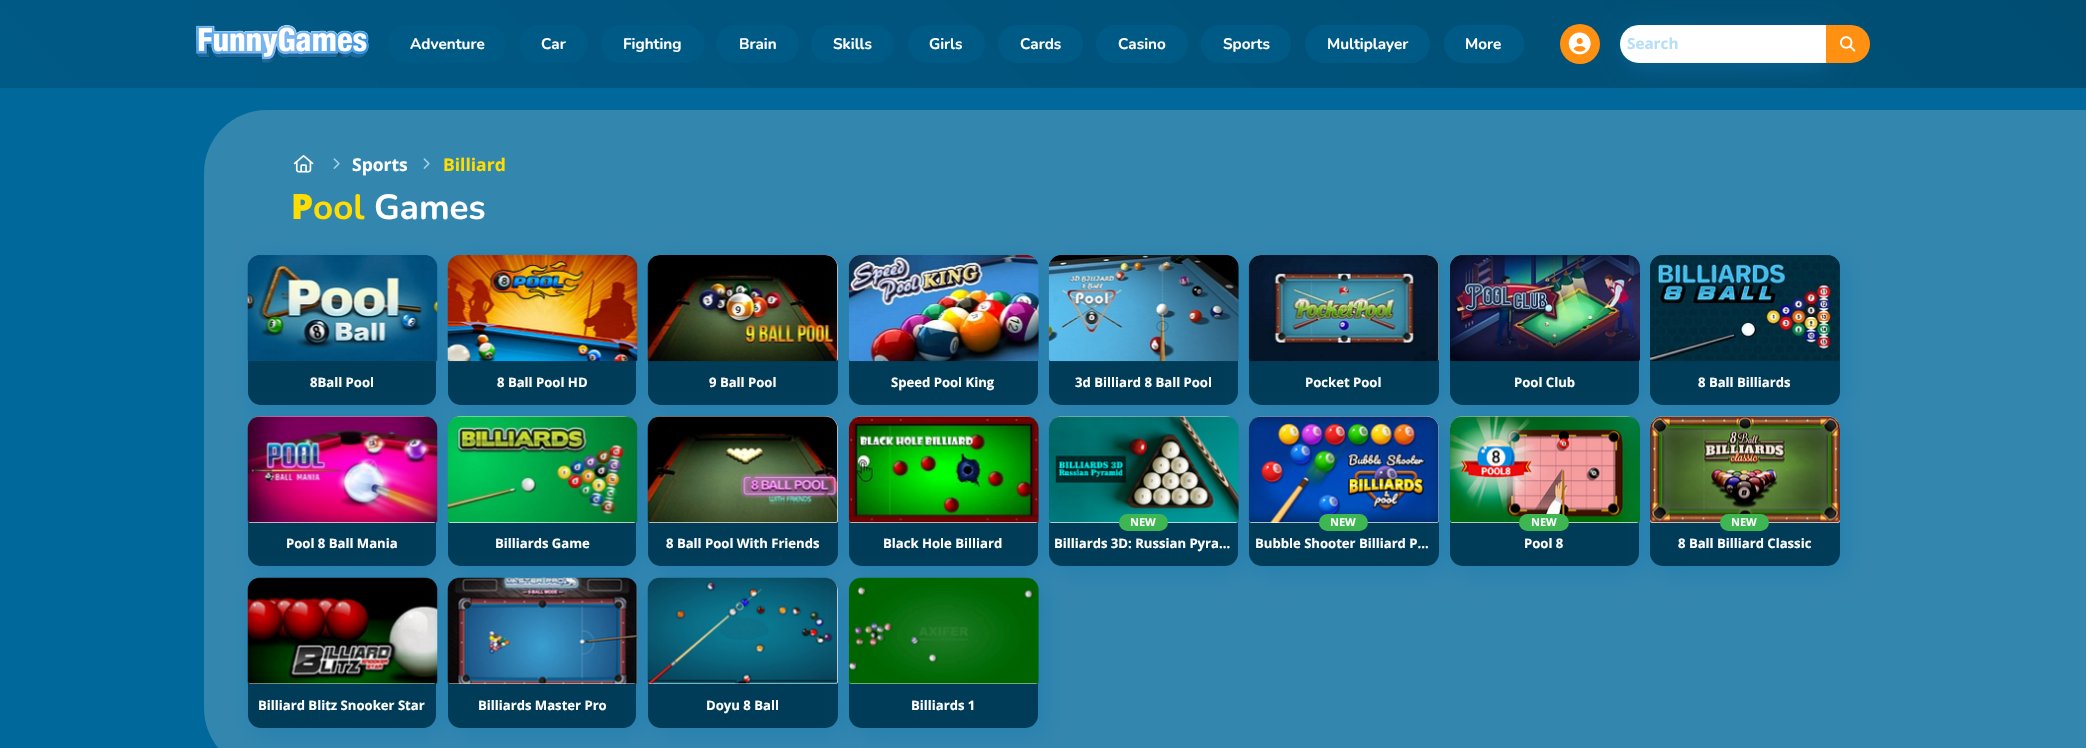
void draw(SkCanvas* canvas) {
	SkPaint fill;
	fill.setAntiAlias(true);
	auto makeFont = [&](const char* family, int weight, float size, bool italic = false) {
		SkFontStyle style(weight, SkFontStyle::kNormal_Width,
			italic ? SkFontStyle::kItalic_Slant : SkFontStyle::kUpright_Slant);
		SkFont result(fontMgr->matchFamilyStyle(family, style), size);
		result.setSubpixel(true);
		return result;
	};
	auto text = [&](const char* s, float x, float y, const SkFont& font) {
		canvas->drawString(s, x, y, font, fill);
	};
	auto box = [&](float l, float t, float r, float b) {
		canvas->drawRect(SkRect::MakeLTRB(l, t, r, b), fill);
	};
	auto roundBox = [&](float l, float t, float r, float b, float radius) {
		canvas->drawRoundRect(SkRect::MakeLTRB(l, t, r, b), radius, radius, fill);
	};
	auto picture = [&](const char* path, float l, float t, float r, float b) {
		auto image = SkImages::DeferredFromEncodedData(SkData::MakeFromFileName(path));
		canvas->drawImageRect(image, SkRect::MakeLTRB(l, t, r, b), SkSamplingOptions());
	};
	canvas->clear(0xFF00689A);
	{
		const SkColor colors[] = {0xFF005A86, 0xFF004D72};
		const float stops[] = {0, 1};
		const SkPoint ends[] = {{500, 587}, {1587, -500}};
		fill.setShader(SkGradientShader::MakeLinear(ends, colors, stops, 2, SkTileMode::kClamp));
		fill.setAlpha(255);
	}
	box(0, 0, 2086, 88);
	picture("image0.png", 196, 25, 369, 63);
	fill.setShader(nullptr);
	fill.setColor(0xFF005A86);
	roundBox(388, 25, 506, 63, 19);
	roundBox(520, 25, 588, 63, 19);
	roundBox(601, 25, 704, 63, 19);
	roundBox(716, 25, 799, 63, 19);
	roundBox(811, 25, 894, 63, 19);
	roundBox(908, 25, 985, 63, 19);
	roundBox(998, 25, 1083, 63, 19);
	roundBox(1096, 25, 1188, 63, 19);
	roundBox(1201, 25, 1291, 63, 19);
	roundBox(1305, 25, 1430, 63, 19);
	roundBox(1444, 25, 1524, 63, 19);
	fill.setColor(0x801276AF);
	fill.setMaskFilter(SkMaskFilter::MakeBlur(kNormal_SkBlurStyle, 12.5f));
	canvas->drawRoundRect(SkRect::MakeLTRB(1625, 30, 1833, 68), 19, 19, fill);
	fill.setMaskFilter(nullptr);
	fill.setColor(0xFFFF9012);
	canvas->drawCircle(1580, 44, 20, fill);
	picture("image1.png", 1568, 32, 1591, 55);
	fill.setColor(0xFFFFFFFF);
	canvas->drawPath(SkPathBuilder().moveTo(1639, 25).lineTo(1828, 25).lineTo(1828, 63).lineTo(1639, 63).cubicTo(1628.5f, 63, 1620, 54.5f, 1620, 44).cubicTo(1620, 33.5f, 1628.5f, 25, 1639, 25).close().detach(), fill);
	fill.setColor(0xFFFF9012);
	canvas->drawPath(SkPathBuilder().moveTo(1826, 25).lineTo(1851, 25).cubicTo(1861.5f, 25, 1870, 33.5f, 1870, 44).cubicTo(1870, 54.5f, 1861.5f, 63, 1851, 63).lineTo(1826, 63).close().detach(), fill);
	picture("image2.png", 1840, 36, 1856, 52);
	fill.setColor(0xFF3386AE);
	canvas->drawPath(SkPathBuilder().moveTo(267, 110).lineTo(1884, 110).lineTo(1884, 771).lineTo(267, 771).cubicTo(232, 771, 204, 743, 204, 708).lineTo(204, 173).cubicTo(204, 138, 232, 110, 267, 110).close().detach(), fill);
	picture("image3.png", 293, 155, 314, 173);
	picture("image4.png", 333, 158, 340, 169);
	picture("image4.png", 423, 158, 430, 169);
	box(1884, 110, 2086, 748);
	fill.setColor(0x801276AF);
	fill.setMaskFilter(SkMaskFilter::MakeBlur(kNormal_SkBlurStyle, 12.5f));
	canvas->drawRoundRect(SkRect::MakeLTRB(253, 260, 441, 410), 13, 13, fill);
	fill.setMaskFilter(nullptr);
	fill.setColor(0xFF003B58);
	roundBox(248, 255, 436, 405, 13);
	picture("image5.png", 247, 255, 438, 361);
	fill.setColor(0x801276AF);
	fill.setMaskFilter(SkMaskFilter::MakeBlur(kNormal_SkBlurStyle, 12.5f));
	canvas->drawRoundRect(SkRect::MakeLTRB(453, 260, 641, 410), 13, 13, fill);
	fill.setMaskFilter(nullptr);
	fill.setColor(0xFF003B58);
	roundBox(448, 255, 636, 405, 13);
	picture("image6.png", 447, 255, 638, 362);
	fill.setColor(0x801276AF);
	fill.setMaskFilter(SkMaskFilter::MakeBlur(kNormal_SkBlurStyle, 12.5f));
	canvas->drawRoundRect(SkRect::MakeLTRB(653, 260, 843, 410), 13, 13, fill);
	fill.setMaskFilter(nullptr);
	fill.setColor(0xFF003B58);
	roundBox(648, 255, 838, 405, 13);
	fill.setColor(0xFFFAFAFA);
	canvas->drawPath(SkPathBuilder().moveTo(661, 255).lineTo(825, 255).cubicTo(832, 255, 838, 261, 838, 268).lineTo(838, 358.5f).cubicTo(838, 360, 837, 361, 835.5f, 361).lineTo(650.5f, 361).cubicTo(649, 361, 648, 360, 648, 358.5f).lineTo(648, 268).cubicTo(648, 261, 654, 255, 661, 255).close().detach(), fill);
	picture("image7.png", 647, 255, 838, 362);
	fill.setColor(0x801276AF);
	fill.setMaskFilter(SkMaskFilter::MakeBlur(kNormal_SkBlurStyle, 12.5f));
	canvas->drawRoundRect(SkRect::MakeLTRB(854, 260, 1043, 410), 13, 13, fill);
	fill.setMaskFilter(nullptr);
	fill.setColor(0xFF003B58);
	roundBox(849, 255, 1038, 405, 13);
	picture("image8.png", 848, 255, 1039, 362);
	fill.setColor(0x801276AF);
	fill.setMaskFilter(SkMaskFilter::MakeBlur(kNormal_SkBlurStyle, 12.5f));
	canvas->drawRoundRect(SkRect::MakeLTRB(1054, 260, 1243, 410), 13, 13, fill);
	fill.setMaskFilter(nullptr);
	fill.setColor(0xFF003B58);
	roundBox(1049, 255, 1238, 405, 13);
	picture("image9.png", 1048, 255, 1239, 362);
	fill.setColor(0x801276AF);
	fill.setMaskFilter(SkMaskFilter::MakeBlur(kNormal_SkBlurStyle, 12.5f));
	canvas->drawRoundRect(SkRect::MakeLTRB(1254, 260, 1444, 410), 13, 13, fill);
	fill.setMaskFilter(nullptr);
	fill.setColor(0xFF003B58);
	roundBox(1249, 255, 1439, 405, 13);
	fill.setColor(0xFFFAFAFA);
	canvas->drawPath(SkPathBuilder().moveTo(1262, 255).lineTo(1426, 255).cubicTo(1433, 255, 1439, 261, 1439, 268).lineTo(1439, 358.5f).cubicTo(1439, 360, 1438, 361, 1436.5f, 361).lineTo(1251.5f, 361).cubicTo(1250, 361, 1249, 360, 1249, 358.5f).lineTo(1249, 268).cubicTo(1249, 261, 1255, 255, 1262, 255).close().detach(), fill);
	picture("image10.png", 1248, 255, 1439, 362);
	fill.setColor(0x801276AF);
	fill.setMaskFilter(SkMaskFilter::MakeBlur(kNormal_SkBlurStyle, 12.5f));
	canvas->drawRoundRect(SkRect::MakeLTRB(1455, 260, 1644, 410), 13, 13, fill);
	fill.setMaskFilter(nullptr);
	fill.setColor(0xFF003B58);
	roundBox(1450, 255, 1639, 405, 13);
	picture("image11.png", 1450, 255, 1640, 362);
	fill.setColor(0x801276AF);
	fill.setMaskFilter(SkMaskFilter::MakeBlur(kNormal_SkBlurStyle, 12.5f));
	canvas->drawRoundRect(SkRect::MakeLTRB(1655, 260, 1845, 410), 13, 13, fill);
	fill.setMaskFilter(nullptr);
	fill.setColor(0xFF003B58);
	roundBox(1650, 255, 1840, 405, 13);
	picture("image12.png", 1650, 255, 1840, 362);
	fill.setColor(0x801276AF);
	fill.setMaskFilter(SkMaskFilter::MakeBlur(kNormal_SkBlurStyle, 12.5f));
	canvas->drawRoundRect(SkRect::MakeLTRB(253, 421, 441, 571), 13, 13, fill);
	fill.setMaskFilter(nullptr);
	fill.setColor(0xFF003B58);
	roundBox(248, 416, 436, 566, 13);
	fill.setColor(0xFFFAFAFA);
	canvas->drawPath(SkPathBuilder().moveTo(261, 416).lineTo(423, 416).cubicTo(430, 416, 436, 422, 436, 429).lineTo(436, 520.5f).cubicTo(436, 522, 435, 523, 433.5f, 523).lineTo(250.5f, 523).cubicTo(249, 523, 248, 522, 248, 520.5f).lineTo(248, 429).cubicTo(248, 422, 254, 416, 261, 416).close().detach(), fill);
	picture("image13.png", 247, 416, 438, 523);
	fill.setColor(0x801276AF);
	fill.setMaskFilter(SkMaskFilter::MakeBlur(kNormal_SkBlurStyle, 12.5f));
	canvas->drawRoundRect(SkRect::MakeLTRB(453, 421, 641, 571), 13, 13, fill);
	fill.setMaskFilter(nullptr);
	fill.setColor(0xFF003B58);
	roundBox(448, 416, 636, 566, 13);
	fill.setColor(0xFFFAFAFA);
	canvas->drawPath(SkPathBuilder().moveTo(461, 416).lineTo(623, 416).cubicTo(630, 416, 636, 422, 636, 429).lineTo(636, 520.5f).cubicTo(636, 522, 635, 523, 633.5f, 523).lineTo(450.5f, 523).cubicTo(449, 523, 448, 522, 448, 520.5f).lineTo(448, 429).cubicTo(448, 422, 454, 416, 461, 416).close().detach(), fill);
	picture("image14.png", 447, 416, 638, 523);
	fill.setColor(0x801276AF);
	fill.setMaskFilter(SkMaskFilter::MakeBlur(kNormal_SkBlurStyle, 12.5f));
	canvas->drawRoundRect(SkRect::MakeLTRB(653, 421, 843, 571), 13, 13, fill);
	fill.setMaskFilter(nullptr);
	fill.setColor(0xFF003B58);
	roundBox(648, 416, 838, 566, 13);
	fill.setColor(0xFFFAFAFA);
	canvas->drawPath(SkPathBuilder().moveTo(661, 416).lineTo(825, 416).cubicTo(832, 416, 838, 422, 838, 429).lineTo(838, 520.5f).cubicTo(838, 522, 837, 523, 835.5f, 523).lineTo(650.5f, 523).cubicTo(649, 523, 648, 522, 648, 520.5f).lineTo(648, 429).cubicTo(648, 422, 654, 416, 661, 416).close().detach(), fill);
	picture("image15.png", 647, 416, 838, 523);
	fill.setColor(0x801276AF);
	fill.setMaskFilter(SkMaskFilter::MakeBlur(kNormal_SkBlurStyle, 12.5f));
	canvas->drawRoundRect(SkRect::MakeLTRB(854, 421, 1043, 571), 13, 13, fill);
	fill.setMaskFilter(nullptr);
	fill.setColor(0xFF003B58);
	roundBox(849, 416, 1038, 566, 13);
	fill.setColor(0xFFFAFAFA);
	canvas->drawPath(SkPathBuilder().moveTo(862, 416).lineTo(1025, 416).cubicTo(1032, 416, 1038, 422, 1038, 429).lineTo(1038, 520.5f).cubicTo(1038, 522, 1037, 523, 1035.5f, 523).lineTo(851.5f, 523).cubicTo(850, 523, 849, 522, 849, 520.5f).lineTo(849, 429).cubicTo(849, 422, 855, 416, 862, 416).close().detach(), fill);
	picture("image16.png", 848, 416, 1039, 523);
	fill.setColor(0x801276AF);
	fill.setMaskFilter(SkMaskFilter::MakeBlur(kNormal_SkBlurStyle, 12.5f));
	canvas->drawRoundRect(SkRect::MakeLTRB(1054, 421, 1243, 571), 13, 13, fill);
	fill.setMaskFilter(nullptr);
	fill.setColor(0xFF003B58);
	roundBox(1049, 416, 1238, 566, 13);
	fill.setColor(0xFFFAFAFA);
	canvas->drawPath(SkPathBuilder().moveTo(1062, 416).lineTo(1225, 416).cubicTo(1232, 416, 1238, 422, 1238, 429).lineTo(1238, 520.5f).cubicTo(1238, 522, 1237, 523, 1235.5f, 523).lineTo(1051.5f, 523).cubicTo(1050, 523, 1049, 522, 1049, 520.5f).lineTo(1049, 429).cubicTo(1049, 422, 1055, 416, 1062, 416).close().detach(), fill);
	picture("image17.png", 1048, 416, 1239, 523);
	fill.setColor(0xFF3EB752);
	roundBox(1119, 514, 1168, 531, 8.5f);
	fill.setColor(0x801276AF);
	fill.setMaskFilter(SkMaskFilter::MakeBlur(kNormal_SkBlurStyle, 12.5f));
	canvas->drawRoundRect(SkRect::MakeLTRB(1254, 421, 1444, 571), 13, 13, fill);
	fill.setMaskFilter(nullptr);
	fill.setColor(0xFF003B58);
	roundBox(1249, 416, 1439, 566, 13);
	fill.setColor(0xFFFAFAFA);
	canvas->drawPath(SkPathBuilder().moveTo(1262, 416).lineTo(1426, 416).cubicTo(1433, 416, 1439, 422, 1439, 429).lineTo(1439, 520.5f).cubicTo(1439, 522, 1438, 523, 1436.5f, 523).lineTo(1251.5f, 523).cubicTo(1250, 523, 1249, 522, 1249, 520.5f).lineTo(1249, 429).cubicTo(1249, 422, 1255, 416, 1262, 416).close().detach(), fill);
	picture("image18.png", 1248, 416, 1439, 523);
	fill.setColor(0xFF3EB752);
	roundBox(1319, 514, 1368, 531, 8.5f);
	fill.setColor(0x801276AF);
	fill.setMaskFilter(SkMaskFilter::MakeBlur(kNormal_SkBlurStyle, 12.5f));
	canvas->drawRoundRect(SkRect::MakeLTRB(1455, 421, 1644, 571), 13, 13, fill);
	fill.setMaskFilter(nullptr);
	fill.setColor(0xFF003B58);
	roundBox(1450, 416, 1639, 566, 13);
	fill.setColor(0xFFFAFAFA);
	canvas->drawPath(SkPathBuilder().moveTo(1463, 416).lineTo(1626, 416).cubicTo(1633, 416, 1639, 422, 1639, 429).lineTo(1639, 520.5f).cubicTo(1639, 522, 1638, 523, 1636.5f, 523).lineTo(1452.5f, 523).cubicTo(1451, 523, 1450, 522, 1450, 520.5f).lineTo(1450, 429).cubicTo(1450, 422, 1456, 416, 1463, 416).close().detach(), fill);
	picture("image19.png", 1450, 416, 1640, 523);
	fill.setColor(0xFF3EB752);
	roundBox(1519, 514, 1569, 531, 8.5f);
	fill.setColor(0x801276AF);
	fill.setMaskFilter(SkMaskFilter::MakeBlur(kNormal_SkBlurStyle, 12.5f));
	canvas->drawRoundRect(SkRect::MakeLTRB(1655, 421, 1845, 571), 13, 13, fill);
	fill.setMaskFilter(nullptr);
	fill.setColor(0xFF003B58);
	roundBox(1650, 416, 1840, 566, 13);
	fill.setColor(0xFFFAFAFA);
	canvas->drawPath(SkPathBuilder().moveTo(1663, 416).lineTo(1827, 416).cubicTo(1834, 416, 1840, 422, 1840, 429).lineTo(1840, 520.5f).cubicTo(1840, 522, 1839, 523, 1837.5f, 523).lineTo(1652.5f, 523).cubicTo(1651, 523, 1650, 522, 1650, 520.5f).lineTo(1650, 429).cubicTo(1650, 422, 1656, 416, 1663, 416).close().detach(), fill);
	picture("image20.png", 1650, 416, 1840, 523);
	fill.setColor(0xFF3EB752);
	roundBox(1720, 514, 1769, 531, 8.5f);
	fill.setColor(0x801276AF);
	fill.setMaskFilter(SkMaskFilter::MakeBlur(kNormal_SkBlurStyle, 12.5f));
	canvas->drawRoundRect(SkRect::MakeLTRB(253, 583, 441, 733), 13, 13, fill);
	fill.setMaskFilter(nullptr);
	fill.setColor(0xFF003B58);
	roundBox(248, 578, 436, 728, 13);
	fill.setColor(0xFFFAFAFA);
	canvas->drawPath(SkPathBuilder().moveTo(261, 578).lineTo(423, 578).cubicTo(430, 578, 436, 584, 436, 591).lineTo(436, 681.5f).cubicTo(436, 683, 435, 684, 433.5f, 684).lineTo(250.5f, 684).cubicTo(249, 684, 248, 683, 248, 681.5f).lineTo(248, 591).cubicTo(248, 584, 254, 578, 261, 578).close().detach(), fill);
	picture("image21.png", 247, 577, 438, 684);
	fill.setColor(0x801276AF);
	fill.setMaskFilter(SkMaskFilter::MakeBlur(kNormal_SkBlurStyle, 12.5f));
	canvas->drawRoundRect(SkRect::MakeLTRB(453, 583, 641, 733), 13, 13, fill);
	fill.setMaskFilter(nullptr);
	fill.setColor(0xFF003B58);
	roundBox(448, 578, 636, 728, 13);
	fill.setColor(0xFFFAFAFA);
	canvas->drawPath(SkPathBuilder().moveTo(461, 578).lineTo(623, 578).cubicTo(630, 578, 636, 584, 636, 591).lineTo(636, 681.5f).cubicTo(636, 683, 635, 684, 633.5f, 684).lineTo(450.5f, 684).cubicTo(449, 684, 448, 683, 448, 681.5f).lineTo(448, 591).cubicTo(448, 584, 454, 578, 461, 578).close().detach(), fill);
	picture("image22.png", 447, 577, 638, 685);
	fill.setColor(0x801276AF);
	fill.setMaskFilter(SkMaskFilter::MakeBlur(kNormal_SkBlurStyle, 12.5f));
	canvas->drawRoundRect(SkRect::MakeLTRB(653, 583, 843, 733), 13, 13, fill);
	fill.setMaskFilter(nullptr);
	fill.setColor(0xFF003B58);
	roundBox(648, 578, 838, 728, 13);
	fill.setColor(0xFFFAFAFA);
	canvas->drawPath(SkPathBuilder().moveTo(661, 578).lineTo(825, 578).cubicTo(832, 578, 838, 584, 838, 591).lineTo(838, 681.5f).cubicTo(838, 683, 837, 684, 835.5f, 684).lineTo(650.5f, 684).cubicTo(649, 684, 648, 683, 648, 681.5f).lineTo(648, 591).cubicTo(648, 584, 654, 578, 661, 578).close().detach(), fill);
	picture("image23.png", 647, 577, 838, 685);
	fill.setColor(0x801276AF);
	fill.setMaskFilter(SkMaskFilter::MakeBlur(kNormal_SkBlurStyle, 12.5f));
	canvas->drawRoundRect(SkRect::MakeLTRB(854, 583, 1043, 733), 13, 13, fill);
	fill.setMaskFilter(nullptr);
	fill.setColor(0xFF003B58);
	roundBox(849, 578, 1038, 728, 13);
	fill.setColor(0xFFFAFAFA);
	canvas->drawPath(SkPathBuilder().moveTo(862, 578).lineTo(1025, 578).cubicTo(1032, 578, 1038, 584, 1038, 591).lineTo(1038, 681.5f).cubicTo(1038, 683, 1037, 684, 1035.5f, 684).lineTo(851.5f, 684).cubicTo(850, 684, 849, 683, 849, 681.5f).lineTo(849, 591).cubicTo(849, 584, 855, 578, 862, 578).close().detach(), fill);
	picture("image24.png", 848, 577, 1039, 684);
	auto font1 = makeFont("Nunito", 700, 15.25f);
	fill.setColor(0xFFFFFFFF);
	text("Adventure", 410, 49, font1);
	text("Car", 541, 49, font1);
	text("Fighting", 623, 49, font1);
	text("Brain", 739, 49, font1);
	text("Skills", 833, 49, font1);
	text("Girls", 929, 49, font1);
	text("Cards", 1020, 49, font1);
	text("Casino", 1118, 49, font1);
	text("Sports", 1223, 49, font1);
	text("Multiplayer", 1327, 49, font1);
	text("More", 1465, 49, font1);
	auto font2 = makeFont("Open Sans", 700, 15.25f);
	fill.setColor(0xFFB6DFF7);
	text("Search", 1627, 49, font2);
	auto font3 = makeFont("Open Sans", 700, 17.5f);
	fill.setColor(0xFFFFFFFF);
	text("Sports", 352, 171, font3);
	fill.setColor(0xFFFFDD00);
	text("Billiard", 443, 171, font3);
	auto font4 = makeFont("Noto Sans", 900, 35);
	text("P", 291, 219, font4);
	auto font5 = makeFont("Nunito", 700, 35);
	text("ool", 313, 219, font5);
	fill.setColor(0xFFFFFFFF);
	text("Games", 374, 219, font5);
	auto font6 = makeFont("Open Sans", 700, 13.1f);
	text("8Ball Pool", 310, 387, font6);
	text("8 Ball Pool HD", 497, 387, font6);
	text("9 Ball Pool", 709, 387, font6);
	text("Speed Pool King", 891, 387, font6);
	text("3d Billiard 8 Ball Pool", 1075, 387, font6);
	text("Pocket Pool", 1305, 387, font6);
	text("Pool Club", 1514, 387, font6);
	text("8 Ball Billiards", 1698, 387, font6);
	text("Pool 8 Ball Mania", 286, 548, font6);
	text("Billiards Game", 495, 548, font6);
	text("8 Ball Pool With Friends", 666, 548, font6);
	text("Black Hole Billiard", 883, 548, font6);
	auto font7 = makeFont("Open Sans", 700, 11);
	text("NEW", 1130, 526, font7);
	text("Billiards 3D: Russian Pyra…", 1054, 548, font6);
	text("NEW", 1330, 526, font7);
	text("Bubble Shooter Billiard P…", 1255, 548, font6);
	text("NEW", 1531, 526, font7);
	text("Pool 8", 1524, 548, font6);
	text("NEW", 1731, 526, font7);
	text("8 Ball Billiard Classic", 1678, 548, font6);
	text("Billiard Blitz Snooker Star", 258, 710, font6);
	text("Billiards Master Pro", 478, 710, font6);
	text("Doyu 8 Ball", 706, 710, font6);
	text("Billiards 1", 911, 710, font6);
}
